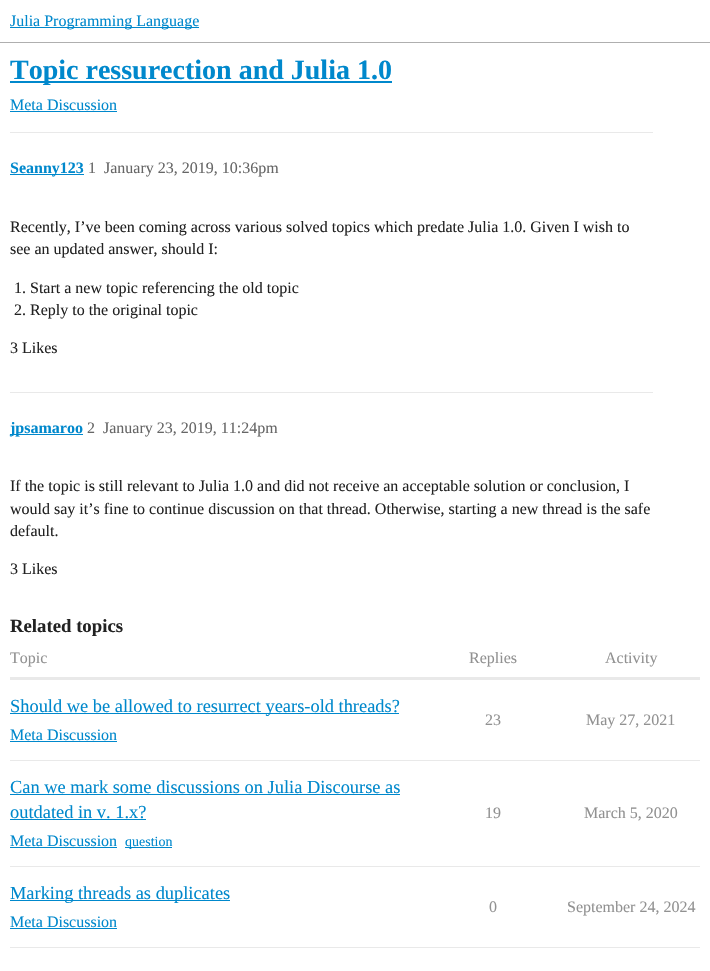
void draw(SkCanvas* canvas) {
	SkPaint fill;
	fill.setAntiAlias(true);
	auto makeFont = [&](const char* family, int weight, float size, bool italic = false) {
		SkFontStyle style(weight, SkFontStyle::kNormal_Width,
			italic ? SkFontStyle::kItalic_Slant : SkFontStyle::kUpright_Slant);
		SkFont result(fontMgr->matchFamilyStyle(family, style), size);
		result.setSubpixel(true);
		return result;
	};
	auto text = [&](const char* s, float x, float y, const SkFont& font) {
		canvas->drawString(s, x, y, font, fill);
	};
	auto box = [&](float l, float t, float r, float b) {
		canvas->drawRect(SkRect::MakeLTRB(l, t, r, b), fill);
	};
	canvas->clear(0xFFFFFFFF);
	fill.setColor(0xFFAFAFAF);
	box(0, 42, 710, 43);
	fill.setColor(0xFF0088CC);
	box(10, 27, 199, 28);
	box(10, 81, 392, 83);
	box(10, 111, 117, 112);
	fill.setColor(0xFFE9E9E9);
	box(10, 132, 653, 133);
	fill.setColor(0xFF0088CC);
	box(10, 174, 84, 175);
	fill.setColor(0xFFE9E9E9);
	box(10, 392, 653, 393);
	fill.setColor(0xFF0088CC);
	box(10, 434, 83, 435);
	fill.setColor(0xFFE9E9E9);
	box(10, 677, 700, 680);
	box(10, 760, 700, 761);
	fill.setColor(0xFF0088CC);
	box(10, 713, 399, 714);
	box(10, 741, 117, 742);
	fill.setColor(0xFFE9E9E9);
	box(10, 866, 700, 867);
	fill.setColor(0xFF0088CC);
	box(10, 794, 400, 795);
	box(10, 819, 146, 820);
	box(10, 847, 117, 848);
	box(125, 847, 172, 848);
	fill.setColor(0xFFE9E9E9);
	box(10, 947, 700, 948);
	fill.setColor(0xFF0088CC);
	box(10, 900, 230, 901);
	box(10, 928, 117, 929);
	auto font1 = makeFont("Liberation Serif", 400, 16);
	text("Julia Programming Language", 10, 26, font1);
	auto font2 = makeFont("Liberation Serif", 700, 28);
	text("Topic ressurection and Julia 1.0", 10, 79, font2);
	text("Meta Discussion", 10, 110, font1);
	auto font3 = makeFont("Liberation Serif", 700, 16);
	text("Seanny123", 10, 173, font3);
	fill.setColor(0xFF666666);
	text("1", 88, 173, font1);
	text("January 23, 2019, 10:36pm", 104, 173, font1);
	fill.setColor(0xFF222222);
	text("Recently, I’ve been coming across various solved topics which predate Julia 1.0. Given I wish to", 10, 232, font1);
	text("see an updated answer, should I:", 10, 254, font1);
	text("1. Start a new topic referencing the old topic", 14, 293, font1);
	text("2. Reply to the original topic", 14, 315, font1);
	text("3 Likes", 10, 353, font1);
	fill.setColor(0xFF0088CC);
	text("jpsamaroo", 10, 433, font3);
	fill.setColor(0xFF666666);
	text("2", 87, 433, font1);
	text("January 23, 2019, 11:24pm", 103, 433, font1);
	fill.setColor(0xFF222222);
	text("If the topic is still relevant to Julia 1.0 and did not receive an acceptable solution or conclusion, I", 10, 491, font1);
	text("would say it’s fine to continue discussion on that thread. Otherwise, starting a new thread is the safe", 10, 514, font1);
	text("default.", 10, 536, font1);
	text("3 Likes", 10, 574, font1);
	auto font4 = makeFont("Liberation Serif", 700, 18.75f);
	text("Related topics", 10, 632, font4);
	fill.setColor(0xFF919191);
	text("Topic", 10, 663, font1);
	text("Replies", 469, 663, font1);
	text("Activity", 605, 663, font1);
	auto font5 = makeFont("Liberation Serif", 400, 18.4f);
	fill.setColor(0xFF0088CC);
	text("Should we be allowed to resurrect years-old threads?", 10, 712, font5);
	text("Meta Discussion", 10, 740, font1);
	fill.setColor(0xFF919191);
	text("23", 485, 725, font1);
	text("May 27, 2021", 586, 725, font1);
	fill.setColor(0xFF0088CC);
	text("Can we mark some discussions on Julia Discourse as", 10, 793, font5);
	text("outdated in v. 1.x?", 10, 818, font5);
	text("Meta Discussion", 10, 846, font1);
	auto font6 = makeFont("Liberation Serif", 400, 14);
	text("question", 125, 846, font6);
	fill.setColor(0xFF919191);
	text("19", 485, 818, font1);
	text("March 5, 2020", 584, 818, font1);
	fill.setColor(0xFF0088CC);
	text("Marking threads as duplicates", 10, 899, font5);
	text("Meta Discussion", 10, 927, font1);
	fill.setColor(0xFF919191);
	text("0", 489, 912, font1);
	text("September 24, 2024", 567, 912, font1);
}
